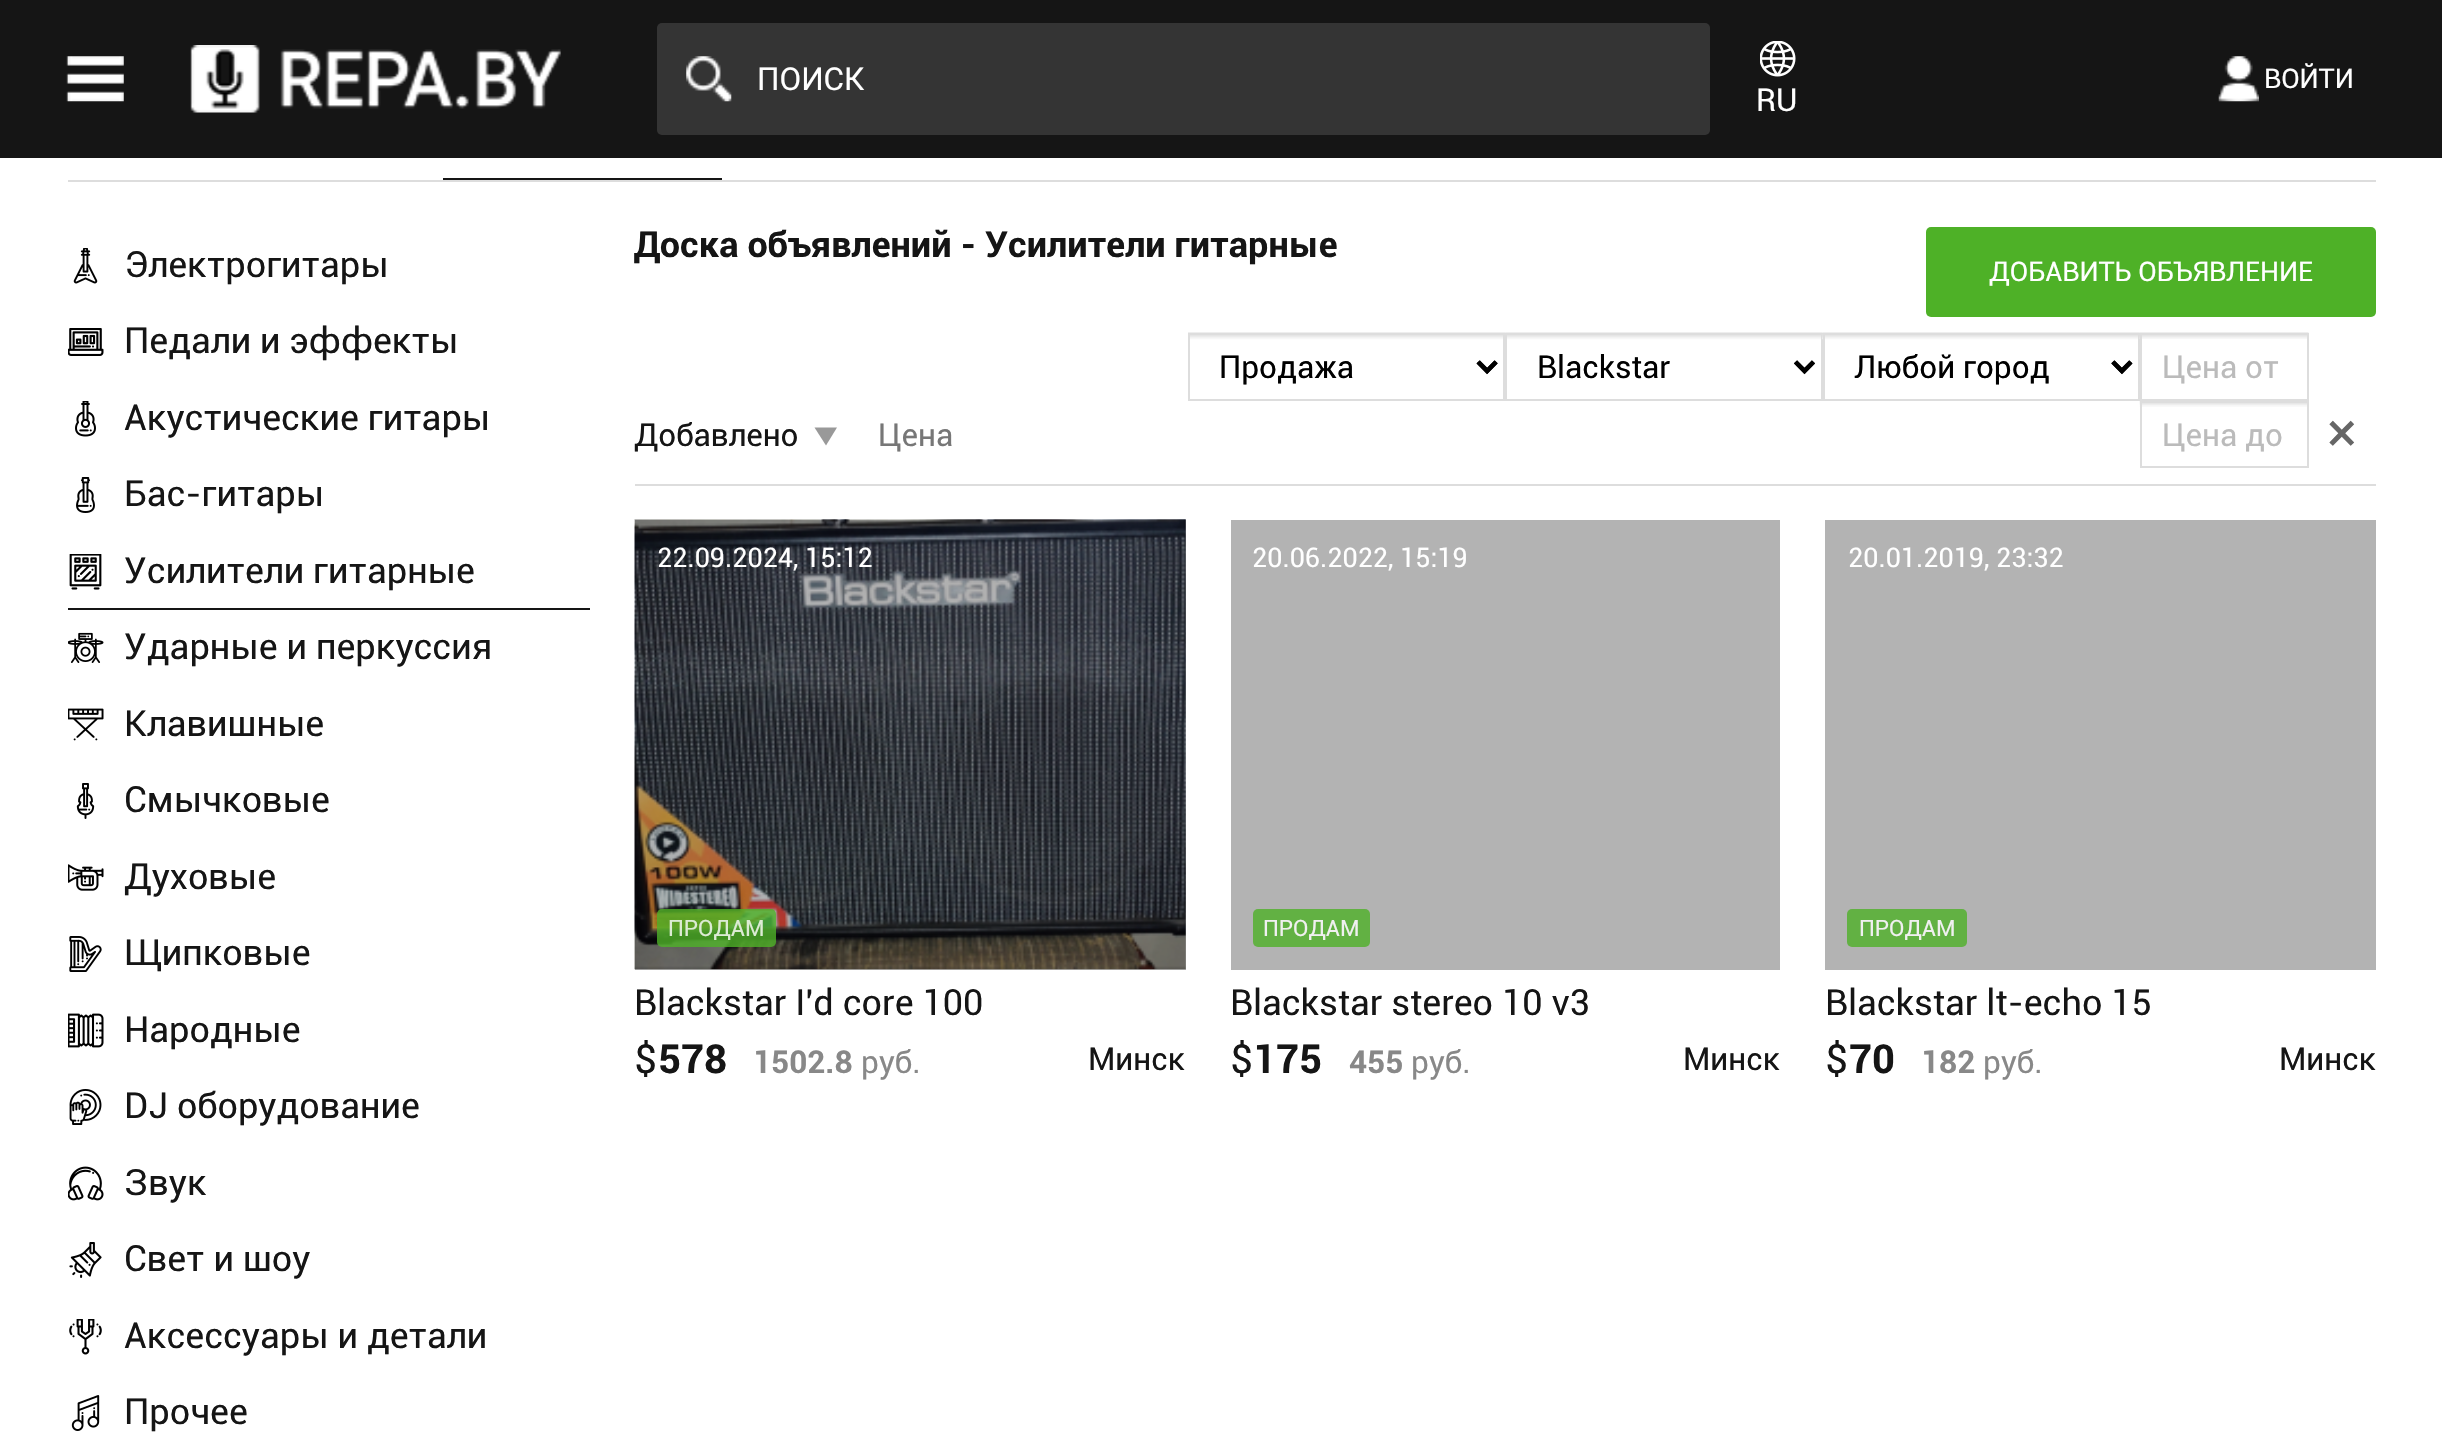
void draw(SkCanvas* canvas) {
	SkPaint fill;
	fill.setAntiAlias(true);
	auto makeFont = [&](const char* family, int weight, float size, bool italic = false) {
		SkFontStyle style(weight, SkFontStyle::kNormal_Width,
			italic ? SkFontStyle::kItalic_Slant : SkFontStyle::kUpright_Slant);
		SkFont result(fontMgr->matchFamilyStyle(family, style), size);
		result.setSubpixel(true);
		return result;
	};
	auto text = [&](const char* s, float x, float y, const SkFont& font) {
		canvas->drawString(s, x, y, font, fill);
	};
	auto box = [&](float l, float t, float r, float b) {
		canvas->drawRect(SkRect::MakeLTRB(l, t, r, b), fill);
	};
	auto roundBox = [&](float l, float t, float r, float b, float radius) {
		canvas->drawRoundRect(SkRect::MakeLTRB(l, t, r, b), radius, radius, fill);
	};
	auto picture = [&](const char* path, float l, float t, float r, float b) {
		auto image = SkImages::DeferredFromEncodedData(SkData::MakeFromFileName(path));
		canvas->drawImageRect(image, SkRect::MakeLTRB(l, t, r, b), SkSamplingOptions());
	};
	canvas->clear(0xFFFFFFFF);
	fill.setColor(0xFF151515);
	box(0, 0, 2442, 158);
	picture("image0.png", 66, 56, 124, 102);
	picture("image1.png", 190, 45, 561, 113);
	fill.setColor(0xFF343434);
	roundBox(657, 23, 1710, 135, 5);
	picture("image2.png", 686, 56, 732, 102);
	picture("image3.png", 2218, 56, 2259, 102);
	picture("image4.png", 1760, 41, 1796, 77);
	fill.setColor(0xFFB3B3B3);
	box(635, 520, 1186, 970);
	fill.setColor(0xFFDDDDDD);
	box(68, 180, 2376, 182);
	fill.setColor(0xFF151515);
	box(443, 178, 722, 180);
	picture("image5.png", 73, 248, 98, 284);
	picture("image6.png", 68, 328, 104, 356);
	picture("image7.png", 75, 401, 96, 437);
	picture("image8.png", 76, 477, 95, 513);
	box(68, 608, 590, 610);
	picture("image9.png", 69, 554, 102, 590);
	picture("image10.png", 68, 632, 104, 663);
	picture("image11.png", 68, 708, 104, 741);
	picture("image12.png", 76, 783, 95, 819);
	picture("image13.png", 68, 864, 104, 891);
	picture("image14.png", 69, 936, 102, 972);
	picture("image15.png", 68, 1013, 104, 1048);
	picture("image16.png", 69, 1089, 102, 1125);
	picture("image17.png", 68, 1166, 104, 1201);
	picture("image18.png", 69, 1242, 102, 1278);
	picture("image19.png", 69, 1319, 102, 1355);
	picture("image20.png", 71, 1395, 100, 1431);
	fill.setColor(0xFF4EB127);
	roundBox(1926, 227, 2376, 317, 5);
	fill.setColor(0xFFDDDDDD);
	box(635, 484, 2376, 486);
	fill.setColor(0xFF999999);
	canvas->drawPath(SkPathBuilder().moveTo(814.5f, 427.5f).lineTo(837, 427.5f).lineTo(826, 445.5f).close().detach(), fill);
	picture("image21.png", 1188, 332, 1506, 374);
	fill.setStyle(SkPaint::kStroke_Style);
	fill.setStrokeWidth(4.5f);
	fill.setColor(0xFF000000);
	canvas->drawPath(SkPathBuilder().moveTo(1478, 362).lineTo(1487, 371).lineTo(1496, 362).detach(), fill);
	fill.setStrokeWidth(2);
	fill.setColor(0xFFDDDDDD);
	canvas->drawRect(SkRect::MakeLTRB(1189, 334, 1504, 400), fill);
	picture("image22.png", 1505, 332, 1823, 374);
	fill.setStrokeWidth(4.5f);
	fill.setColor(0xFF000000);
	canvas->drawPath(SkPathBuilder().moveTo(1795.5f, 362).lineTo(1804.5f, 371).lineTo(1813.5f, 362).detach(), fill);
	fill.setStrokeWidth(2);
	fill.setColor(0xFFDDDDDD);
	canvas->drawRect(SkRect::MakeLTRB(1506, 334, 1822, 400), fill);
	picture("image23.png", 1822, 332, 2140, 374);
	fill.setStrokeWidth(4.5f);
	fill.setColor(0xFF000000);
	canvas->drawPath(SkPathBuilder().moveTo(2113, 362).lineTo(2122, 371).lineTo(2131, 362).detach(), fill);
	fill.setStrokeWidth(2);
	fill.setColor(0xFFDDDDDD);
	canvas->drawRect(SkRect::MakeLTRB(1824, 334, 2139, 400), fill);
	picture("image24.png", 2139, 332, 2309, 339);
	canvas->drawRect(SkRect::MakeLTRB(2141, 334, 2308, 400), fill);
	picture("image25.png", 2139, 401, 2307, 407);
	canvas->drawRect(SkRect::MakeLTRB(2141, 402, 2308, 467), fill);
	picture("image26.png", 634, 519, 1186, 970);
	fill.setStyle(SkPaint::kFill_Style);
	fill.setColor(0xCC4EB127);
	roundBox(657, 909, 776, 947, 5);
	fill.setColor(0xFFB3B3B3);
	box(1231, 520, 1780, 970);
	fill.setColor(0xFF62B143);
	roundBox(1253, 909, 1370, 947, 5);
	fill.setColor(0xFFB3B3B3);
	box(1825, 520, 2376, 970);
	fill.setColor(0xFF62B143);
	roundBox(1847, 909, 1967, 947, 5);
	auto font1 = makeFont("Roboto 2", 400, 31.5f);
	fill.setColor(0xFFFFFFFF);
	text("ПОИСК", 757, 90, font1);
	auto font2 = makeFont("Roboto", 400, 27);
	text("ВОЙТИ", 2264, 88, font2);
	auto font3 = makeFont("Roboto", 400, 31.5f);
	text("RU", 1756, 111, font3);
	auto font4 = makeFont("Roboto", 400, 36);
	fill.setColor(0xFF151515);
	text("Электрогитары", 124, 277, font4);
	text("Педали и эффекты", 124, 353, font4);
	text("Акустические гитары", 124, 430, font4);
	text("Бас-гитары", 124, 506, font4);
	text("Усилители гитарные", 124, 583, font4);
	text("Ударные и перкуссия", 124, 659, font4);
	text("Клавишные", 124, 736, font4);
	text("Смычковые", 124, 812, font4);
	text("Духовые", 124, 889, font4);
	text("Щипковые", 124, 965, font4);
	text("Народные", 124, 1042, font4);
	text("DJ оборудование", 124, 1118, font4);
	text("Звук", 124, 1195, font4);
	text("Свет и шоу", 124, 1271, font4);
	text("Аксессуары и детали", 124, 1348, font4);
	text("Прочее", 124, 1424, font4);
	auto font5 = makeFont("Roboto", 700, 36);
	text("Доска объявлений - Усилители гитарные", 634, 257, font5);
	fill.setColor(0xFFFFFFFF);
	text("ДОБАВИТЬ ОБЪЯВЛЕНИЕ", 1989, 281, font2);
	fill.setColor(0xFF151515);
	text("Добавлено", 634, 446, font3);
	fill.setColor(0xFF777777);
	text("Цена", 878, 446, font3);
	fill.setColor(0xFF000000);
	text("Продажа", 1219, 378, font3);
	text("Blackstar", 1537, 378, font3);
	text("Любой город", 1854, 378, font3);
	fill.setColor(0xFFBBBBBB);
	text("Цена от", 2162, 378, font3);
	text("Цена до", 2162, 446, font3);
	auto font6 = makeFont("Roboto", 400, 56);
	fill.setColor(0xFF666666);
	text("×", 2327, 452, font6);
	fill.setColor(0xFFFFFFFF);
	text("22.09.2024, 15:12", 657, 567, font2);
	auto font7 = makeFont("Roboto", 400, 22.5f);
	fill.setColor(0xFFDCEBD4);
	text("ПРОДАМ", 668, 936, font7);
	fill.setColor(0xFF151515);
	text("Blackstar I'd core 100", 634, 1015, font4);
	auto font8 = makeFont("Roboto", 400, 40);
	text("$", 634, 1073, font8);
	auto font9 = makeFont("Roboto", 700, 40);
	text("578", 658, 1073, font9);
	auto font10 = makeFont("Roboto", 700, 31.5f);
	fill.setColor(0xFF888888);
	text("1502.8", 753, 1073, font10);
	text("руб.", 861, 1073, font3);
	fill.setColor(0xFF151515);
	text("Минск", 1088, 1070, font3);
	fill.setColor(0xFFFFFFFF);
	text("20.06.2022, 15:19", 1252, 567, font2);
	fill.setColor(0xFFF0F0F0);
	text("ПРОДАМ", 1263, 936, font7);
	fill.setColor(0xFF151515);
	text("Blackstar stereo 10 v3", 1230, 1015, font4);
	text("$", 1230, 1073, font8);
	text("175", 1253, 1073, font9);
	fill.setColor(0xFF888888);
	text("455", 1349, 1073, font10);
	text("руб.", 1411, 1073, font3);
	fill.setColor(0xFF151515);
	text("Минск", 1683, 1070, font3);
	fill.setColor(0xFFFFFFFF);
	text("20.01.2019, 23:32", 1848, 567, font2);
	fill.setColor(0xFFF0F0F0);
	text("ПРОДАМ", 1859, 936, font7);
	fill.setColor(0xFF151515);
	text("Blackstar lt-echo 15", 1825, 1015, font4);
	text("$", 1825, 1073, font8);
	text("70", 1849, 1073, font9);
	fill.setColor(0xFF888888);
	text("182", 1921, 1073, font10);
	text("руб.", 1983, 1073, font3);
	fill.setColor(0xFF151515);
	text("Минск", 2279, 1070, font3);
}
